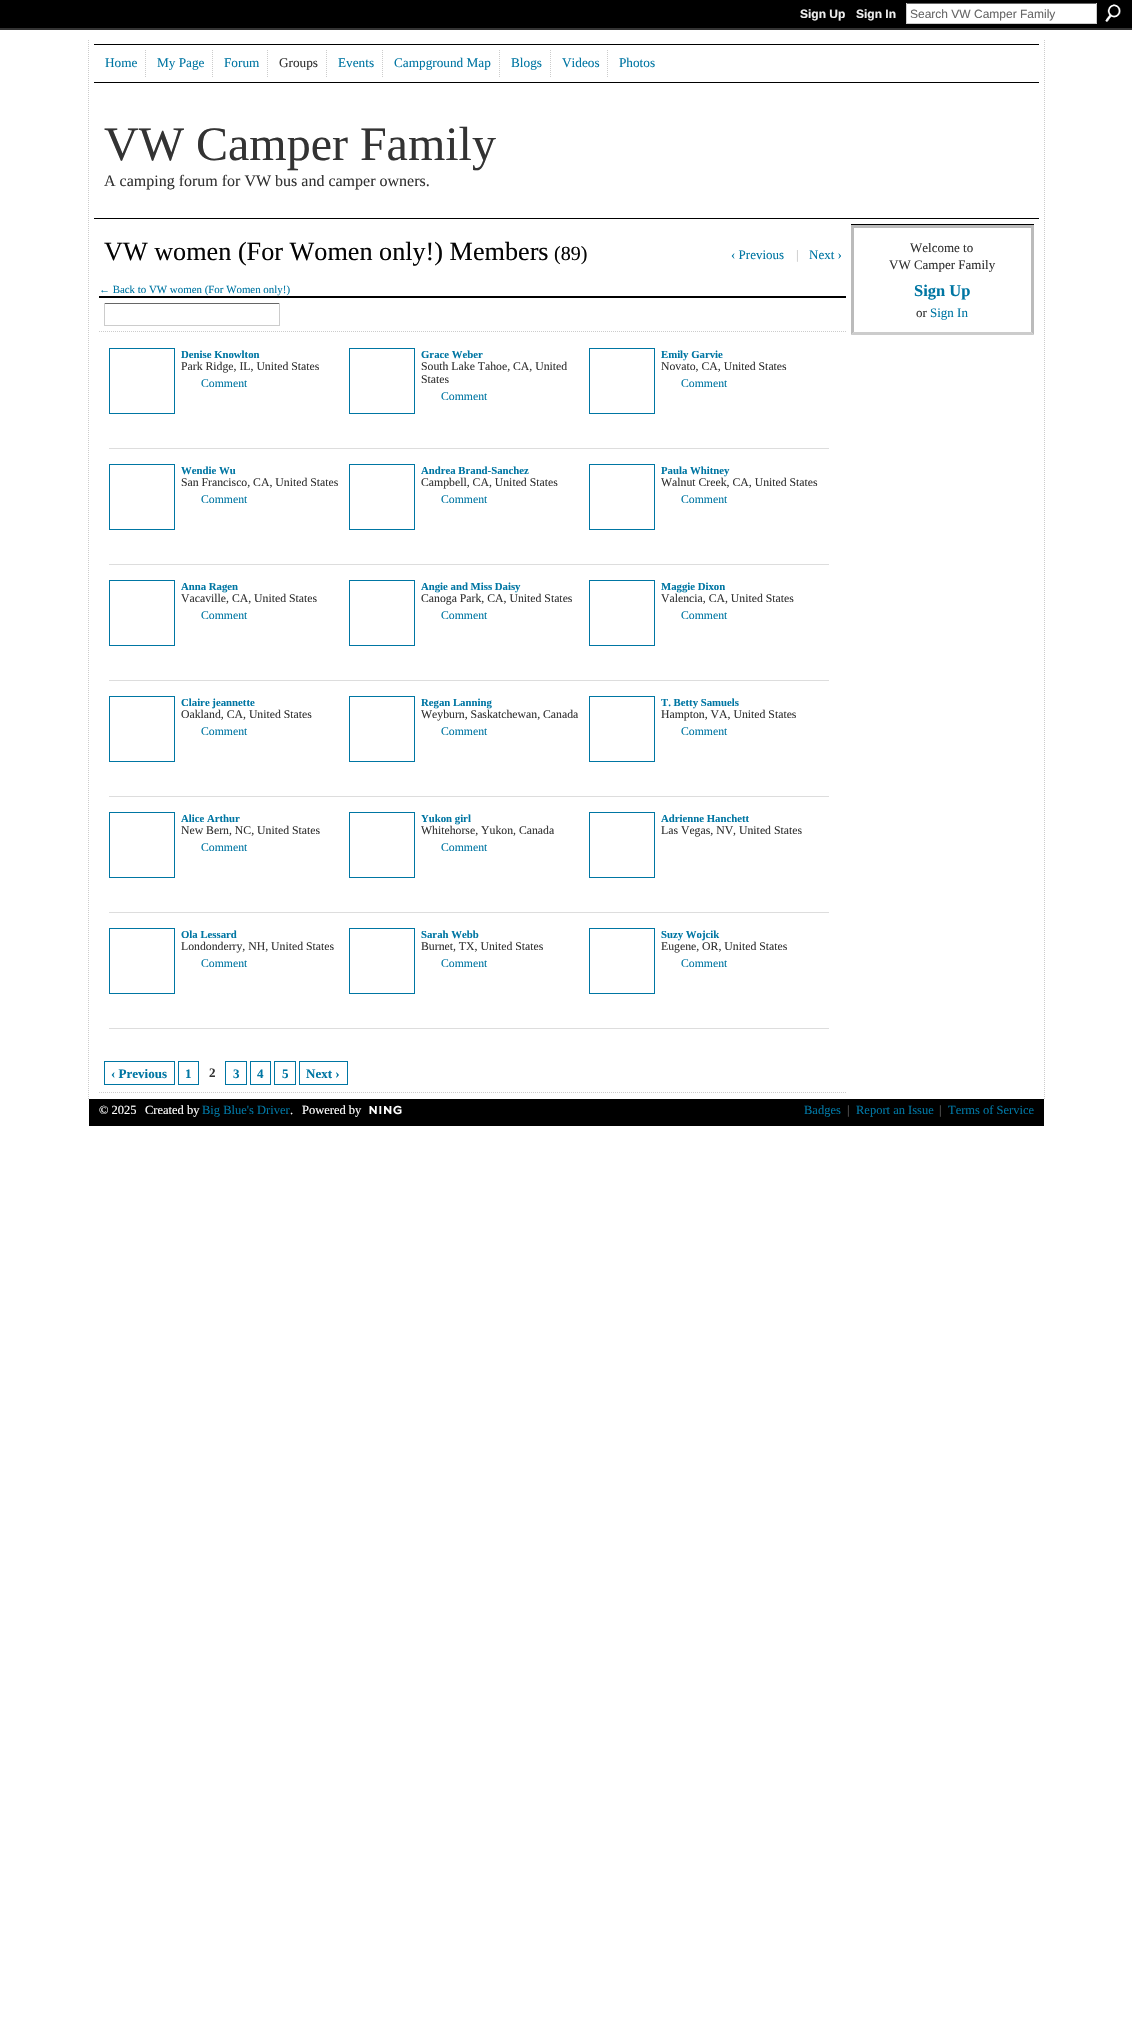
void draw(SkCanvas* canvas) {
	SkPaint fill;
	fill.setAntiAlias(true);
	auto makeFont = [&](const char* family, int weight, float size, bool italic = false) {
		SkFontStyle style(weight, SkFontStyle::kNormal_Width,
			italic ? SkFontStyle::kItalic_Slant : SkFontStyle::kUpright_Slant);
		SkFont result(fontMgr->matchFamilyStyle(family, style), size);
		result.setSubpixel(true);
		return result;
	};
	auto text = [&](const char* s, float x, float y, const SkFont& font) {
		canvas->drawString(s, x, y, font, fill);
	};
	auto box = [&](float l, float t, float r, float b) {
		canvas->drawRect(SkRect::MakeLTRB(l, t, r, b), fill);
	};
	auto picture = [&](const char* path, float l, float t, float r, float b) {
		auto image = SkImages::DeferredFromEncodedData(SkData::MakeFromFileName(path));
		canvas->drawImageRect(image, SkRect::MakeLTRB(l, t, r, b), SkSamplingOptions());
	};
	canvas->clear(0xFFFFFFFF);
	fill.setColor(0xFF000000);
	box(0, 0, 1132, 28);
	fill.setColor(0xFF333333);
	box(0, 28, 1132, 30);
	fill.setColor(0xFFFFFFFF);
	box(907, 4, 1096, 23);
	fill.setColor(0xFF666666);
	box(906, 3, 1097, 4);
	fill.setColor(0xFFCCCCCC);
	box(1096, 3, 1097, 24);
	box(906, 23, 1097, 24);
	box(906, 3, 907, 24);
	picture("image0.png", 1105, 4, 1121, 22);
	fill.setStyle(SkPaint::kStroke_Style);
	fill.setStrokeWidth(1);
	fill.setPathEffect(SkDashPathEffect::Make({{1, 1}}, 0));
	canvas->drawPath(SkPathBuilder().moveTo(1044.5f, 40).lineTo(1044.5f, 1099).detach(), fill);
	fill.setPathEffect(nullptr);
	fill.setPathEffect(SkDashPathEffect::Make({{1, 1}}, 0));
	canvas->drawPath(SkPathBuilder().moveTo(88.5f, 40).lineTo(88.5f, 1099).detach(), fill);
	fill.setPathEffect(nullptr);
	fill.setStyle(SkPaint::kFill_Style);
	fill.setColor(0xFF000000);
	box(94, 44, 1039, 45);
	box(94, 82, 1039, 83);
	fill.setStyle(SkPaint::kStroke_Style);
	fill.setColor(0xFFCCCCCC);
	fill.setPathEffect(SkDashPathEffect::Make({{1, 1}}, 0));
	canvas->drawPath(SkPathBuilder().moveTo(145.5f, 50).lineTo(145.5f, 77).detach(), fill);
	fill.setPathEffect(nullptr);
	fill.setPathEffect(SkDashPathEffect::Make({{1, 1}}, 0));
	canvas->drawPath(SkPathBuilder().moveTo(212.5f, 50).lineTo(212.5f, 77).detach(), fill);
	fill.setPathEffect(nullptr);
	fill.setPathEffect(SkDashPathEffect::Make({{1, 1}}, 0));
	canvas->drawPath(SkPathBuilder().moveTo(267.5f, 50).lineTo(267.5f, 77).detach(), fill);
	fill.setPathEffect(nullptr);
	fill.setPathEffect(SkDashPathEffect::Make({{1, 1}}, 0));
	canvas->drawPath(SkPathBuilder().moveTo(326.5f, 50).lineTo(326.5f, 77).detach(), fill);
	fill.setPathEffect(nullptr);
	fill.setPathEffect(SkDashPathEffect::Make({{1, 1}}, 0));
	canvas->drawPath(SkPathBuilder().moveTo(382.5f, 50).lineTo(382.5f, 77).detach(), fill);
	fill.setPathEffect(nullptr);
	fill.setPathEffect(SkDashPathEffect::Make({{1, 1}}, 0));
	canvas->drawPath(SkPathBuilder().moveTo(499.5f, 50).lineTo(499.5f, 77).detach(), fill);
	fill.setPathEffect(nullptr);
	fill.setPathEffect(SkDashPathEffect::Make({{1, 1}}, 0));
	canvas->drawPath(SkPathBuilder().moveTo(550.5f, 50).lineTo(550.5f, 77).detach(), fill);
	fill.setPathEffect(nullptr);
	fill.setPathEffect(SkDashPathEffect::Make({{1, 1}}, 0));
	canvas->drawPath(SkPathBuilder().moveTo(607.5f, 50).lineTo(607.5f, 77).detach(), fill);
	fill.setPathEffect(nullptr);
	fill.setStyle(SkPaint::kFill_Style);
	fill.setColor(0xFF000000);
	box(94, 218, 1039, 219);
	box(99, 296, 846, 298);
	fill.setStyle(SkPaint::kStroke_Style);
	fill.setColor(0xFFCCCCCC);
	fill.setPathEffect(SkDashPathEffect::Make({{1, 1}}, 0));
	canvas->drawPath(SkPathBuilder().moveTo(99, 331.5f).lineTo(846, 331.5f).detach(), fill);
	fill.setPathEffect(nullptr);
	fill.setStyle(SkPaint::kFill_Style);
	fill.setColor(0xFF666666);
	box(104, 303, 280, 304);
	fill.setColor(0xFFCCCCCC);
	box(279, 303, 280, 326);
	box(104, 325, 280, 326);
	box(104, 303, 105, 326);
	fill.setStyle(SkPaint::kStroke_Style);
	fill.setPathEffect(SkDashPathEffect::Make({{1, 1}}, 0));
	canvas->drawPath(SkPathBuilder().moveTo(99, 1092.5f).lineTo(846, 1092.5f).detach(), fill);
	fill.setPathEffect(nullptr);
	fill.setStyle(SkPaint::kFill_Style);
	fill.setColor(0xFFDDDDDD);
	box(109, 448, 829, 449);
	fill.setStyle(SkPaint::kStroke_Style);
	fill.setColor(0xFF0076A3);
	canvas->drawRect(SkRect::MakeLTRB(109.5f, 348.5f, 174.5f, 413.5f), fill);
	canvas->drawRect(SkRect::MakeLTRB(349.5f, 348.5f, 414.5f, 413.5f), fill);
	canvas->drawRect(SkRect::MakeLTRB(589.5f, 348.5f, 654.5f, 413.5f), fill);
	fill.setStyle(SkPaint::kFill_Style);
	fill.setColor(0xFFDDDDDD);
	box(109, 564, 829, 565);
	fill.setStyle(SkPaint::kStroke_Style);
	fill.setColor(0xFF0076A3);
	canvas->drawRect(SkRect::MakeLTRB(109.5f, 464.5f, 174.5f, 529.5f), fill);
	canvas->drawRect(SkRect::MakeLTRB(349.5f, 464.5f, 414.5f, 529.5f), fill);
	canvas->drawRect(SkRect::MakeLTRB(589.5f, 464.5f, 654.5f, 529.5f), fill);
	fill.setStyle(SkPaint::kFill_Style);
	fill.setColor(0xFFDDDDDD);
	box(109, 680, 829, 681);
	fill.setStyle(SkPaint::kStroke_Style);
	fill.setColor(0xFF0076A3);
	canvas->drawRect(SkRect::MakeLTRB(109.5f, 580.5f, 174.5f, 645.5f), fill);
	canvas->drawRect(SkRect::MakeLTRB(349.5f, 580.5f, 414.5f, 645.5f), fill);
	canvas->drawRect(SkRect::MakeLTRB(589.5f, 580.5f, 654.5f, 645.5f), fill);
	fill.setStyle(SkPaint::kFill_Style);
	fill.setColor(0xFFDDDDDD);
	box(109, 796, 829, 797);
	fill.setStyle(SkPaint::kStroke_Style);
	fill.setColor(0xFF0076A3);
	canvas->drawRect(SkRect::MakeLTRB(109.5f, 696.5f, 174.5f, 761.5f), fill);
	canvas->drawRect(SkRect::MakeLTRB(349.5f, 696.5f, 414.5f, 761.5f), fill);
	canvas->drawRect(SkRect::MakeLTRB(589.5f, 696.5f, 654.5f, 761.5f), fill);
	fill.setStyle(SkPaint::kFill_Style);
	fill.setColor(0xFFDDDDDD);
	box(109, 912, 829, 913);
	fill.setStyle(SkPaint::kStroke_Style);
	fill.setColor(0xFF0076A3);
	canvas->drawRect(SkRect::MakeLTRB(109.5f, 812.5f, 174.5f, 877.5f), fill);
	canvas->drawRect(SkRect::MakeLTRB(349.5f, 812.5f, 414.5f, 877.5f), fill);
	canvas->drawRect(SkRect::MakeLTRB(589.5f, 812.5f, 654.5f, 877.5f), fill);
	fill.setStyle(SkPaint::kFill_Style);
	fill.setColor(0xFFDDDDDD);
	box(109, 1028, 829, 1029);
	fill.setStyle(SkPaint::kStroke_Style);
	fill.setColor(0xFF0076A3);
	canvas->drawRect(SkRect::MakeLTRB(109.5f, 928.5f, 174.5f, 993.5f), fill);
	canvas->drawRect(SkRect::MakeLTRB(349.5f, 928.5f, 414.5f, 993.5f), fill);
	canvas->drawRect(SkRect::MakeLTRB(589.5f, 928.5f, 654.5f, 993.5f), fill);
	canvas->drawRect(SkRect::MakeLTRB(104.5f, 1061.5f, 174.5f, 1084.5f), fill);
	canvas->drawRect(SkRect::MakeLTRB(178.5f, 1061.5f, 198.5f, 1084.5f), fill);
	canvas->drawRect(SkRect::MakeLTRB(225.5f, 1061.5f, 246.5f, 1084.5f), fill);
	canvas->drawRect(SkRect::MakeLTRB(250.5f, 1061.5f, 270.5f, 1084.5f), fill);
	canvas->drawRect(SkRect::MakeLTRB(274.5f, 1061.5f, 295.5f, 1084.5f), fill);
	canvas->drawRect(SkRect::MakeLTRB(299.5f, 1061.5f, 347.5f, 1084.5f), fill);
	fill.setStyle(SkPaint::kFill_Style);
	fill.setColor(0xFF000000);
	box(851, 224, 1034, 225);
	fill.setColor(0xFFBBBBBB);
	box(851, 225, 1034, 228);
	canvas->drawPath(SkPathBuilder().moveTo(1034, 225).lineTo(1034, 335).lineTo(1031, 332).lineTo(1031, 228).close().detach(), fill);
	fill.setColor(0xFFCCCCCC);
	canvas->drawPath(SkPathBuilder().moveTo(1034, 335).lineTo(851, 335).lineTo(854, 332).lineTo(1031, 332).close().detach(), fill);
	fill.setColor(0xFFBBBBBB);
	canvas->drawPath(SkPathBuilder().moveTo(851, 335).lineTo(851, 225).lineTo(854, 228).lineTo(854, 332).close().detach(), fill);
	fill.setColor(0xFF000000);
	box(89, 1099, 1044, 1126);
	picture("image1.png", 369, 1105, 402, 1115);
	auto font1 = makeFont("Liberation Sans", 700, 12);
	fill.setColor(0xFFEEEEEE);
	text("Sign Up", 800, 18, font1);
	text("Sign In", 856, 18, font1);
	auto font2 = makeFont("Liberation Sans", 400, 12);
	fill.setColor(0xFF666666);
	text("Search VW Camper Family", 910, 18, font2);
	auto font3 = makeFont("Liberation Serif", 400, 13.25f);
	fill.setColor(0xFF0076A3);
	text("Home", 105, 67, font3);
	text("My Page", 157, 67, font3);
	text("Forum", 224, 67, font3);
	fill.setColor(0xFF333333);
	text("Groups", 279, 67, font3);
	fill.setColor(0xFF0076A3);
	text("Events", 338, 67, font3);
	text("Campground Map", 394, 67, font3);
	text("Blogs", 511, 67, font3);
	text("Videos", 562, 67, font3);
	text("Photos", 619, 67, font3);
	auto font4 = makeFont("Liberation Serif", 400, 48);
	fill.setColor(0xFF333333);
	text("VW Camper Family", 104, 160, font4);
	auto font5 = makeFont("Liberation Serif", 400, 16);
	text("A camping forum for VW bus and camper owners.", 104, 186, font5);
	auto font6 = makeFont("Liberation Serif", 400, 26.2f);
	fill.setColor(0xFF040404);
	text("VW women (For Women only!) Members", 104, 260, font6);
	auto font7 = makeFont("Liberation Serif", 400, 20);
	text("(89)", 554, 260, font7);
	auto font8 = makeFont("Liberation Serif", 400, 13);
	fill.setColor(0xFF0076A3);
	text("‹ Previous", 731, 259, font8);
	fill.setColor(0xFFC2C2C2);
	text("|", 796, 259, font8);
	fill.setColor(0xFF0076A3);
	text("Next ›", 809, 259, font8);
	auto font9 = makeFont("Liberation Serif", 400, 10.9f);
	text("← Back to VW women (For Women only!)", 99, 293, font9);
	auto font10 = makeFont("Liberation Serif", 700, 10.75f);
	text("Denise Knowlton", 181, 358, font10);
	auto font11 = makeFont("Liberation Serif", 400, 11.75f);
	fill.setColor(0xFF333333);
	text("Park Ridge, IL, United States", 181, 370, font11);
	fill.setColor(0xFF0076A3);
	text("Comment", 201, 387, font11);
	text("Grace Weber", 421, 358, font10);
	fill.setColor(0xFF333333);
	text("South Lake Tahoe, CA, United", 421, 370, font11);
	text("States", 421, 383, font11);
	fill.setColor(0xFF0076A3);
	text("Comment", 441, 400, font11);
	text("Emily Garvie", 661, 358, font10);
	fill.setColor(0xFF333333);
	text("Novato, CA, United States", 661, 370, font11);
	fill.setColor(0xFF0076A3);
	text("Comment", 681, 387, font11);
	text("Wendie Wu", 181, 474, font10);
	fill.setColor(0xFF333333);
	text("San Francisco, CA, United States", 181, 486, font11);
	fill.setColor(0xFF0076A3);
	text("Comment", 201, 503, font11);
	text("Andrea Brand-Sanchez", 421, 474, font10);
	fill.setColor(0xFF333333);
	text("Campbell, CA, United States", 421, 486, font11);
	fill.setColor(0xFF0076A3);
	text("Comment", 441, 503, font11);
	text("Paula Whitney", 661, 474, font10);
	fill.setColor(0xFF333333);
	text("Walnut Creek, CA, United States", 661, 486, font11);
	fill.setColor(0xFF0076A3);
	text("Comment", 681, 503, font11);
	text("Anna Ragen", 181, 590, font10);
	fill.setColor(0xFF333333);
	text("Vacaville, CA, United States", 181, 602, font11);
	fill.setColor(0xFF0076A3);
	text("Comment", 201, 619, font11);
	text("Angie and Miss Daisy", 421, 590, font10);
	fill.setColor(0xFF333333);
	text("Canoga Park, CA, United States", 421, 602, font11);
	fill.setColor(0xFF0076A3);
	text("Comment", 441, 619, font11);
	text("Maggie Dixon", 661, 590, font10);
	fill.setColor(0xFF333333);
	text("Valencia, CA, United States", 661, 602, font11);
	fill.setColor(0xFF0076A3);
	text("Comment", 681, 619, font11);
	text("Claire jeannette", 181, 706, font10);
	fill.setColor(0xFF333333);
	text("Oakland, CA, United States", 181, 718, font11);
	fill.setColor(0xFF0076A3);
	text("Comment", 201, 735, font11);
	text("Regan Lanning", 421, 706, font10);
	fill.setColor(0xFF333333);
	text("Weyburn, Saskatchewan, Canada", 421, 718, font11);
	fill.setColor(0xFF0076A3);
	text("Comment", 441, 735, font11);
	text("T. Betty Samuels", 661, 706, font10);
	fill.setColor(0xFF333333);
	text("Hampton, VA, United States", 661, 718, font11);
	fill.setColor(0xFF0076A3);
	text("Comment", 681, 735, font11);
	text("Alice Arthur", 181, 822, font10);
	fill.setColor(0xFF333333);
	text("New Bern, NC, United States", 181, 834, font11);
	fill.setColor(0xFF0076A3);
	text("Comment", 201, 851, font11);
	text("Yukon girl", 421, 822, font10);
	fill.setColor(0xFF333333);
	text("Whitehorse, Yukon, Canada", 421, 834, font11);
	fill.setColor(0xFF0076A3);
	text("Comment", 441, 851, font11);
	text("Adrienne Hanchett", 661, 822, font10);
	fill.setColor(0xFF333333);
	text("Las Vegas, NV, United States", 661, 834, font11);
	fill.setColor(0xFF0076A3);
	text("Ola Lessard", 181, 938, font10);
	fill.setColor(0xFF333333);
	text("Londonderry, NH, United States", 181, 950, font11);
	fill.setColor(0xFF0076A3);
	text("Comment", 201, 967, font11);
	text("Sarah Webb", 421, 938, font10);
	fill.setColor(0xFF333333);
	text("Burnet, TX, United States", 421, 950, font11);
	fill.setColor(0xFF0076A3);
	text("Comment", 441, 967, font11);
	text("Suzy Wojcik", 661, 938, font10);
	fill.setColor(0xFF333333);
	text("Eugene, OR, United States", 661, 950, font11);
	fill.setColor(0xFF0076A3);
	text("Comment", 681, 967, font11);
	auto font12 = makeFont("Liberation Serif", 700, 13);
	text("‹ Previous", 111, 1078, font12);
	text("1", 185, 1078, font12);
	fill.setColor(0xFF333333);
	text("2", 209, 1077, font12);
	fill.setColor(0xFF0076A3);
	text("3", 233, 1078, font12);
	text("4", 257, 1078, font12);
	text("5", 282, 1078, font12);
	text("Next ›", 306, 1078, font12);
	fill.setColor(0xFF333333);
	text("Welcome to", 910, 252, font8);
	text("VW Camper Family", 889, 269, font8);
	auto font13 = makeFont("Liberation Serif", 700, 16.5f);
	fill.setColor(0xFF0076A3);
	text("Sign Up", 914, 296, font13);
	fill.setColor(0xFF333333);
	text("or", 916, 317, font8);
	fill.setColor(0xFF0076A3);
	text("Sign In", 930, 317, font8);
	auto font14 = makeFont("Liberation Serif", 400, 12.5f);
	fill.setColor(0xFFFFFFFF);
	text("© 2025", 99, 1114, font14);
	text("Created by", 145, 1114, font14);
	fill.setColor(0xFF0076A3);
	text("Big Blue's Driver", 202, 1114, font14);
	fill.setColor(0xFFFFFFFF);
	text(".", 290, 1114, font14);
	text("Powered by", 302, 1114, font14);
	fill.setColor(0xFF0076A3);
	text("Badges", 804, 1114, font14);
	fill.setColor(0xFF666666);
	text("|", 847, 1114, font14);
	fill.setColor(0xFF0076A3);
	text("Report an Issue", 856, 1114, font14);
	fill.setColor(0xFF666666);
	text("|", 939, 1114, font14);
	fill.setColor(0xFF0076A3);
	text("Terms of Service", 948, 1114, font14);
}
